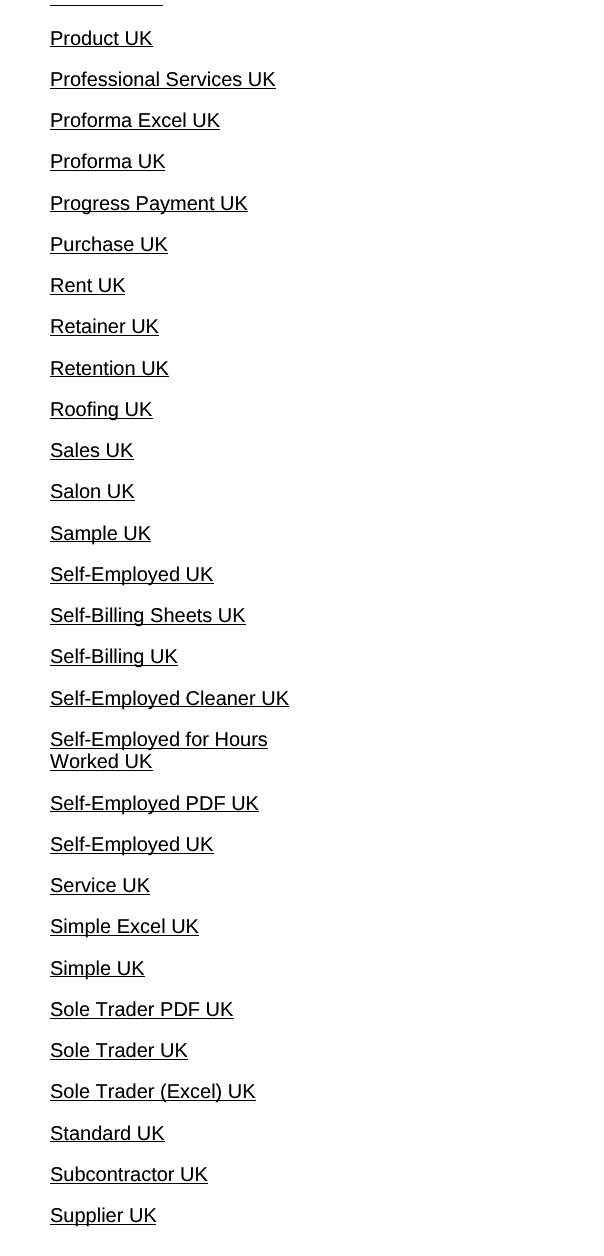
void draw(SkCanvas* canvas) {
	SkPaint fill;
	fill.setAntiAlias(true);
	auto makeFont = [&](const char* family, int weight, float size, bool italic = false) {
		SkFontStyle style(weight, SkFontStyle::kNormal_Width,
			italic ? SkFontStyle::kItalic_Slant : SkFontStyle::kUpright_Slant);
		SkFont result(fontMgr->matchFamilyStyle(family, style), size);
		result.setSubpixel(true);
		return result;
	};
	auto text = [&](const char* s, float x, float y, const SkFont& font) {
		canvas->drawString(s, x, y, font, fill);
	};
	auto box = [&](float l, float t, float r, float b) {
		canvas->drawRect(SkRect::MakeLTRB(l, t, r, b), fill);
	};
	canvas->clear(0xFFFFFFFF);
	fill.setColor(0xFF000000);
	box(50, 5, 163, 6);
	box(50, 46, 153, 47);
	box(50, 88, 276, 89);
	box(50, 129, 220, 130);
	box(50, 170, 165, 171);
	box(50, 211, 248, 212);
	box(50, 253, 168, 254);
	box(50, 294, 125, 295);
	box(50, 335, 159, 336);
	box(50, 376, 169, 377);
	box(50, 418, 153, 419);
	box(50, 459, 134, 460);
	box(50, 500, 135, 501);
	box(50, 541, 151, 542);
	box(50, 583, 214, 584);
	box(50, 624, 246, 625);
	box(50, 665, 178, 666);
	box(50, 706, 289, 707);
	box(50, 748, 268, 749);
	box(50, 770, 153, 771);
	box(50, 811, 259, 812);
	box(50, 853, 214, 854);
	box(50, 894, 150, 895);
	box(50, 935, 199, 936);
	box(50, 976, 145, 977);
	box(50, 1018, 234, 1019);
	box(50, 1059, 188, 1060);
	box(50, 1100, 256, 1101);
	box(50, 1141, 165, 1142);
	box(50, 1183, 208, 1184);
	box(50, 1224, 156, 1225);
	auto font1 = makeFont("Liberation Sans", 400, 20);
	text("Product UK", 50, 45, font1);
	text("Professional Services UK", 50, 86, font1);
	text("Proforma Excel UK", 50, 127, font1);
	text("Proforma UK", 50, 168, font1);
	text("Progress Payment UK", 50, 210, font1);
	text("Purchase UK", 50, 251, font1);
	text("Rent UK", 50, 292, font1);
	text("Retainer UK", 50, 333, font1);
	text("Retention UK", 50, 375, font1);
	text("Roofing UK", 50, 416, font1);
	text("Sales UK", 50, 457, font1);
	text("Salon UK", 50, 498, font1);
	text("Sample UK", 50, 540, font1);
	text("Self-Employed UK", 50, 581, font1);
	text("Self-Billing Sheets UK", 50, 622, font1);
	text("Self-Billing UK", 50, 663, font1);
	text("Self-Employed Cleaner UK", 50, 705, font1);
	text("Self-Employed for Hours", 50, 746, font1);
	text("Worked UK", 50, 768, font1);
	text("Self-Employed PDF UK", 50, 810, font1);
	text("Self-Employed UK", 50, 851, font1);
	text("Service UK", 50, 892, font1);
	text("Simple Excel UK", 50, 933, font1);
	text("Simple UK", 50, 975, font1);
	text("Sole Trader PDF UK", 50, 1016, font1);
	text("Sole Trader UK", 50, 1057, font1);
	text("Sole Trader (Excel) UK", 50, 1098, font1);
	text("Standard UK", 50, 1140, font1);
	text("Subcontractor UK", 50, 1181, font1);
	text("Supplier UK", 50, 1222, font1);
}
